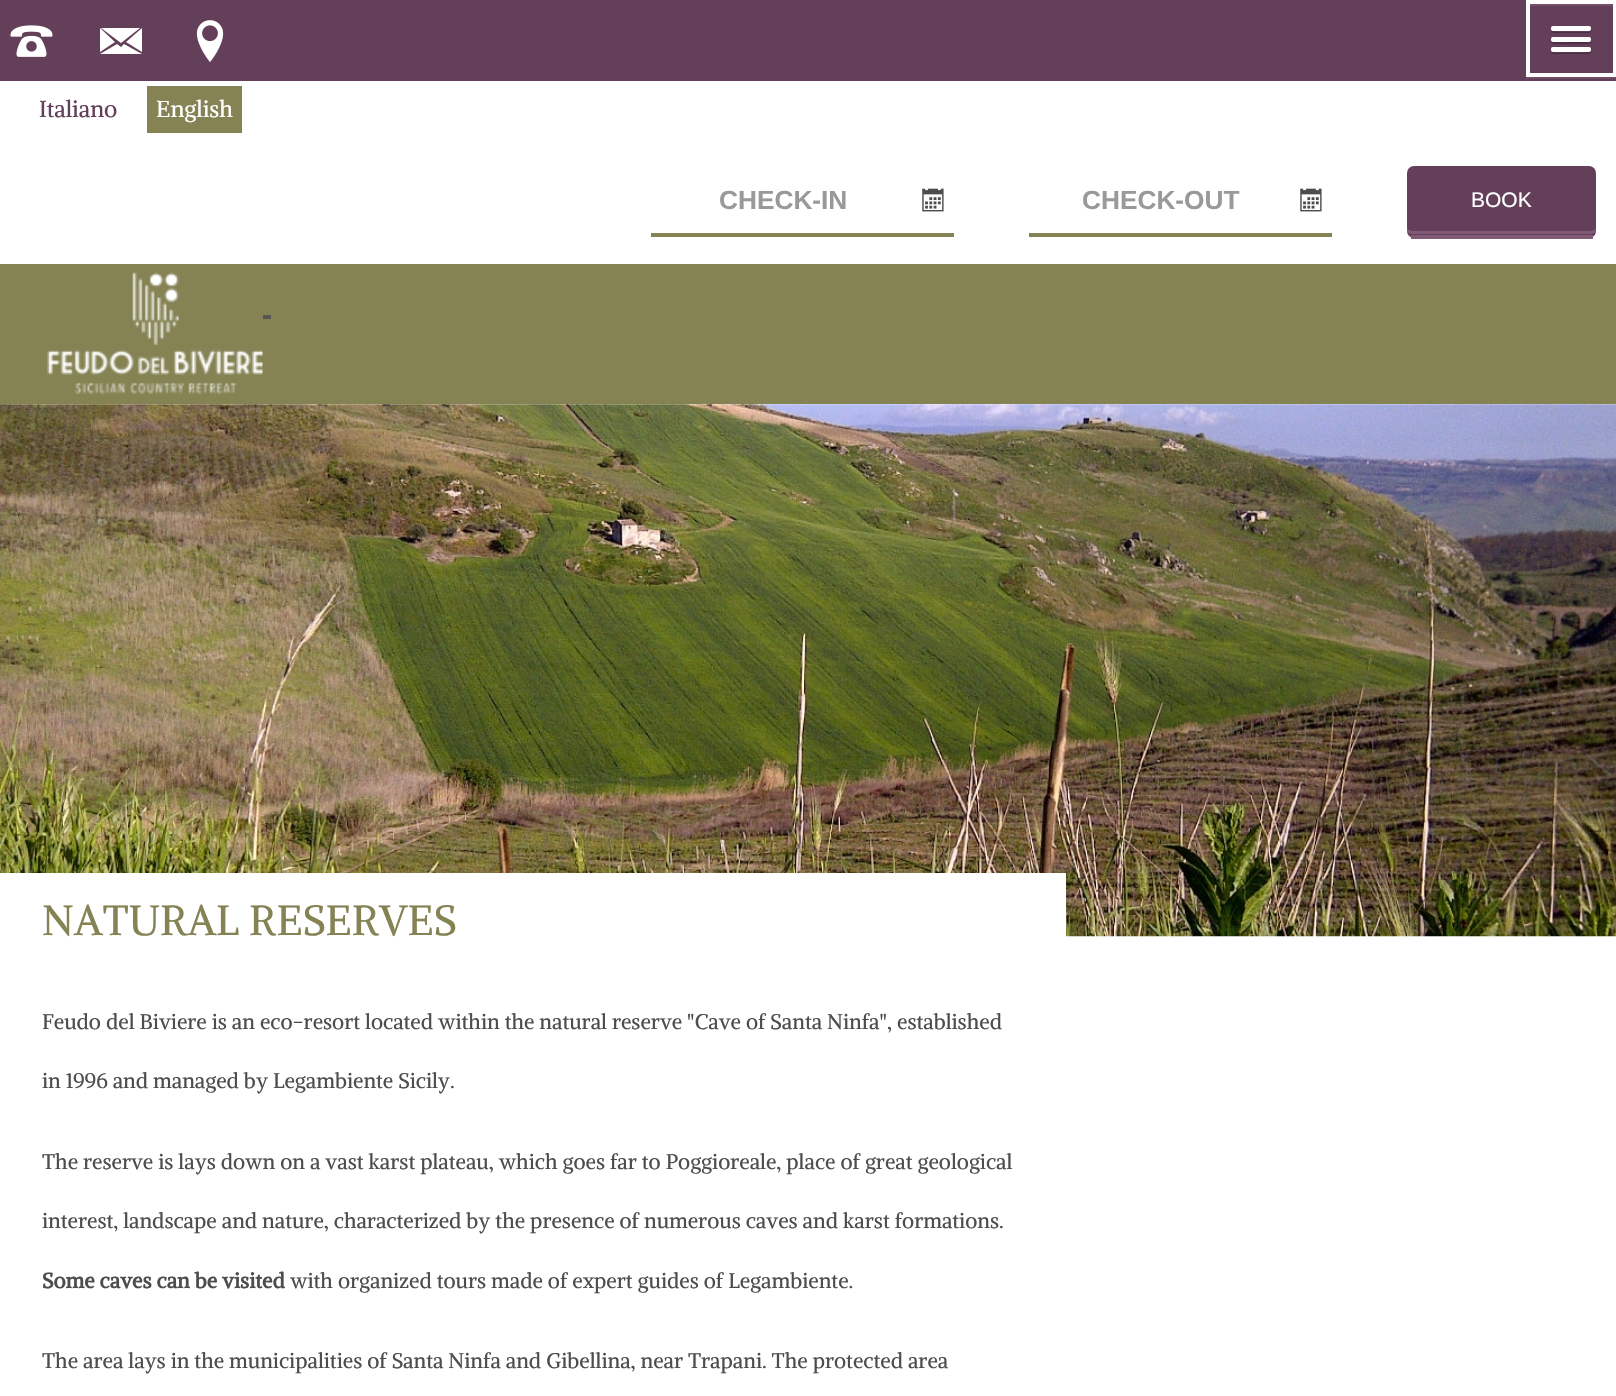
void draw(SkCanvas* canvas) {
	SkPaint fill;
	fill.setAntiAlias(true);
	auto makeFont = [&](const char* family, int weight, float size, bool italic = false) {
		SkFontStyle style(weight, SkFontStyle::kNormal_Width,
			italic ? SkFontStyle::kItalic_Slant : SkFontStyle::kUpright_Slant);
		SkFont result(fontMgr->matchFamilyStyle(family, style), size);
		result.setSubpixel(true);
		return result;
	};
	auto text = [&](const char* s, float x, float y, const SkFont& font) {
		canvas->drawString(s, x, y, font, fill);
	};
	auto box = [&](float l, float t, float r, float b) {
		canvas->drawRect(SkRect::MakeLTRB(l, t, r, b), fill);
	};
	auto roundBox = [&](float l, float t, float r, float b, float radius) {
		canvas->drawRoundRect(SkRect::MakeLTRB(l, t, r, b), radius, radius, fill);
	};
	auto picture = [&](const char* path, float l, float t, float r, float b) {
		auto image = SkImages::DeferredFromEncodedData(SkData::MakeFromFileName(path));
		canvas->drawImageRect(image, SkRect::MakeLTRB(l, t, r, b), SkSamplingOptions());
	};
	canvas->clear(0xFFFFFFFF);
	fill.setColor(0xFF643F59);
	box(0, 0, 1616, 81);
	picture("image0.png", 10, 25, 53, 57);
	fill.setColor(0xFFFFFFFF);
	canvas->drawPath(SkPathBuilder().moveTo(126, 42).lineTo(142, 28).lineTo(142, 52).close().moveTo(100, 28).lineTo(115, 42).lineTo(100, 52).close().moveTo(121, 47).lineTo(124, 44).lineTo(142, 54).lineTo(100, 54).lineTo(117, 44).close().moveTo(140, 28).lineTo(121, 43).lineTo(101, 28).close().detach(), fill);
	picture("image1.png", 196, 20, 224, 62);
	fill.setColor(0xFF704D65);
	box(1526, 77, 1616, 79);
	fill.setColor(0xFF74526A);
	box(1530, 4, 1614, 6);
	fill.setStyle(SkPaint::kStroke_Style);
	fill.setStrokeWidth(4);
	fill.setColor(0xFFFFFFFF);
	canvas->drawRect(SkRect::MakeLTRB(1528, 2, 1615, 75), fill);
	fill.setStyle(SkPaint::kFill_Style);
	fill.setColor(0xFF4B2F43);
	canvas->drawPath(SkPathBuilder().moveTo(1551, 31).cubicTo(1551, 34, 1558, 33, 1559, 33).lineTo(1583, 33).cubicTo(1584, 33, 1594, 34, 1591, 29).cubicTo(1591, 30, 1590, 31, 1589, 32).cubicTo(1585, 32, 1552, 32, 1551, 31).close().detach(), fill);
	fill.setColor(0xFFFFFFFF);
	roundBox(1551, 26, 1591, 31, 2);
	fill.setColor(0xFF4B2F43);
	canvas->drawPath(SkPathBuilder().moveTo(1551, 41).cubicTo(1551, 45, 1556, 44, 1559, 44).lineTo(1583, 44).cubicTo(1584, 44, 1594, 45, 1591, 40).cubicTo(1591, 44, 1584, 42, 1583, 42).lineTo(1571, 42).cubicTo(1568, 42, 1552, 43, 1551, 41).close().detach(), fill);
	fill.setColor(0xFFFFFFFF);
	roundBox(1551, 37, 1591, 42, 2);
	fill.setColor(0xFF4B2F43);
	canvas->drawPath(SkPathBuilder().moveTo(1551, 52).cubicTo(1551, 55, 1558, 54, 1559, 54).lineTo(1583, 54).cubicTo(1584, 54, 1594, 55, 1591, 50).cubicTo(1591, 51, 1590, 52, 1589, 52).cubicTo(1585, 53, 1552, 53, 1551, 52).close().detach(), fill);
	fill.setColor(0xFFFFFFFF);
	roundBox(1551, 47, 1591, 52, 2);
	fill.setColor(0xFF858354);
	box(147, 86, 242, 133);
	box(651, 233, 954, 237);
	picture("image2.png", 922, 188, 944, 212);
	box(1029, 233, 1332, 237);
	picture("image2.png", 1300, 188, 1322, 212);
	fill.setColor(0xFF643F59);
	roundBox(1407, 166, 1596, 238, 7);
	fill.setColor(0xFF815A75);
	canvas->drawPath(SkPathBuilder().moveTo(1407, 228).lineTo(1407, 231).cubicTo(1407, 233, 1410, 234, 1414, 234).lineTo(1589, 234).cubicTo(1593, 234, 1596, 233, 1596, 231).lineTo(1596, 228).cubicTo(1596, 229, 1593, 231, 1589, 231).lineTo(1414, 231).cubicTo(1410, 231, 1407, 229, 1407, 228).close().detach(), fill);
	box(1411, 235, 1593, 239);
	fill.setColor(0xFF858354);
	box(0, 264, 1616, 404);
	picture("image3.png", 47, 272, 263, 394);
	fill.setColor(0xFF555555);
	box(263, 315, 271, 319);
	picture("image4.png", 0, 404, 1616, 937);
	fill.setColor(0xFFFFFFFF);
	box(0, 873, 1066, 937);
	auto font1 = makeFont("Alike", 400, 23);
	fill.setColor(0xFF643F59);
	text("Italiano", 39, 117, font1);
	fill.setColor(0xFFFFFFFF);
	text("English", 156, 117, font1);
	auto font2 = makeFont("Liberation Sans", 700, 26.25f);
	fill.setColor(0xFF999999);
	text("CHECK-IN", 719, 209, font2);
	text("CHECK-OUT", 1082, 209, font2);
	auto font3 = makeFont("Liberation Sans", 400, 21);
	fill.setColor(0xFFFFFFFF);
	text("BOOK", 1471, 207, font3);
	auto font4 = makeFont("Alike", 400, 42);
	fill.setColor(0xFF858354);
	text("NATURAL RESERVES", 42, 935, font4);
	auto font5 = makeFont("Alike", 400, 21);
	fill.setColor(0xFF4D4D4D);
	text("Feudo del Biviere is an eco-resort located within the natural reserve \"Cave of Santa Ninfa\", established", 42, 1029, font5);
	text("in 1996 and managed by Legambiente Sicily.", 42, 1088, font5);
	text("The reserve is lays down on a vast karst plateau, which goes far to Poggioreale, place of great geological", 42, 1169, font5);
	text("interest, landscape and nature, characterized by the presence of numerous caves and karst formations.", 42, 1228, font5);
	auto font6 = makeFont("Alike", 700, 21);
	text("Some caves can be visited", 42, 1288, font6);
	text("with organized tours made of expert guides of Legambiente.", 290, 1288, font5);
	text("The area lays in the municipalities of Santa Ninfa and Gibellina, near Trapani. The protected area", 42, 1368, font5);
}
